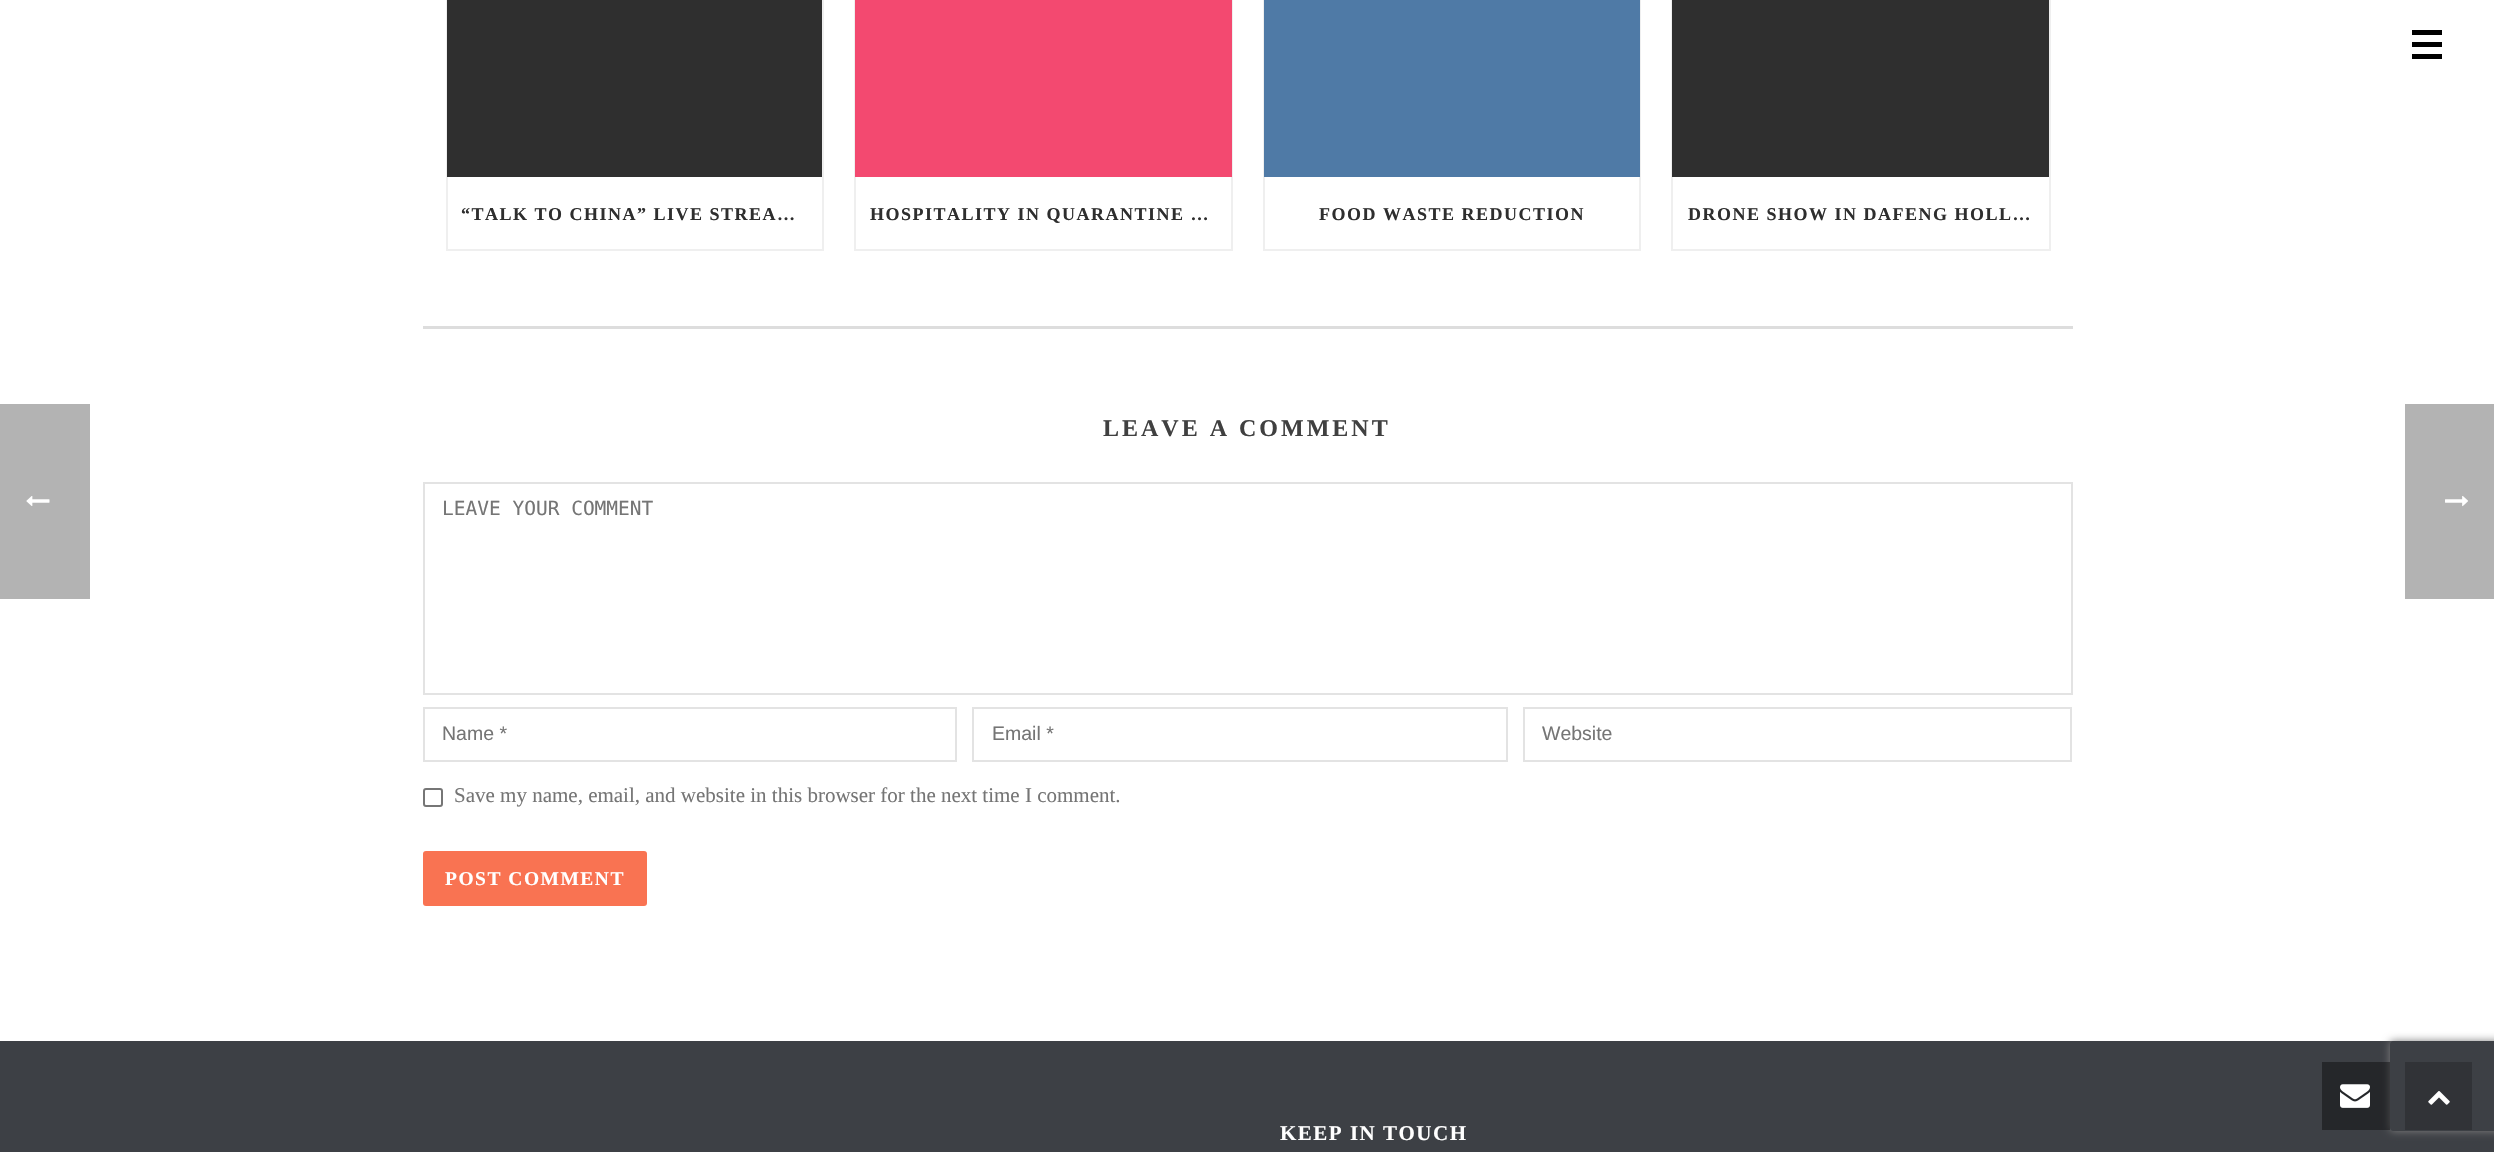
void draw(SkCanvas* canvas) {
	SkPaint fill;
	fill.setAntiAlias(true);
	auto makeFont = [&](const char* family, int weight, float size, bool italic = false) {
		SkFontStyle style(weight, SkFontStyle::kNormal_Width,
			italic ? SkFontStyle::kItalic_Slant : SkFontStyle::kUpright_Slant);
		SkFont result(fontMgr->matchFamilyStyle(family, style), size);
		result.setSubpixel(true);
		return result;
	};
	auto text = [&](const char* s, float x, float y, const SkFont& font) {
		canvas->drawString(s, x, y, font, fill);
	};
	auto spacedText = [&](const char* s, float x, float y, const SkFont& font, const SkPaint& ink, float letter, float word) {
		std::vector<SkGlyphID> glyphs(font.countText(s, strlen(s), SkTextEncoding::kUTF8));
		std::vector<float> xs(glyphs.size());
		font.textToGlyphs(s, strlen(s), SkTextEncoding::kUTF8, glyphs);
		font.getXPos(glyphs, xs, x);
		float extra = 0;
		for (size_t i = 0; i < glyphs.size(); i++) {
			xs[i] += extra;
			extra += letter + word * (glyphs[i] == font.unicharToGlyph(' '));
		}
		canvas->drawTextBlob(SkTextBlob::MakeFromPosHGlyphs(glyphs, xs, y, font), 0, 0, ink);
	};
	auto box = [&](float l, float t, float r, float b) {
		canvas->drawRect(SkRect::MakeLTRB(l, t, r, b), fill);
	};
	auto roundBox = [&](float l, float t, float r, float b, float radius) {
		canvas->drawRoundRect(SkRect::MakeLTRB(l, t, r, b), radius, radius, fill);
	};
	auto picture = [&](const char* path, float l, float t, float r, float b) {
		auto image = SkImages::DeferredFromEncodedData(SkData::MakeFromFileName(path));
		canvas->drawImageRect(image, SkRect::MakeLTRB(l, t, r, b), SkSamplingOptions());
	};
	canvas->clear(0xFFFFFFFF);
	fill.setColor(0xFFB3B3B3);
	box(0, 404, 90, 599);
	picture("image0.png", 26, 496, 50, 506);
	fill.setColor(0xFF000000);
	box(2412, 42, 2442, 47);
	box(2412, 30, 2442, 35);
	box(2412, 54, 2442, 59);
	fill.setColor(0xFFDDDDDD);
	box(423, 326, 2073, 329);
	fill.setStyle(SkPaint::kStroke_Style);
	fill.setStrokeWidth(2);
	fill.setColor(0xFFEFEFEF);
	canvas->drawRect(SkRect::MakeLTRB(447, -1, 823, 250), fill);
	fill.setStyle(SkPaint::kFill_Style);
	fill.setColor(0xFF2F2F2F);
	box(447, 0, 822, 177);
	fill.setStyle(SkPaint::kStroke_Style);
	fill.setColor(0xFFEFEFEF);
	canvas->drawRect(SkRect::MakeLTRB(855, -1, 1232, 250), fill);
	fill.setStyle(SkPaint::kFill_Style);
	fill.setColor(0xFFF34970);
	box(855, 0, 1232, 177);
	fill.setStyle(SkPaint::kStroke_Style);
	fill.setColor(0xFFEFEFEF);
	canvas->drawRect(SkRect::MakeLTRB(1264, -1, 1640, 250), fill);
	fill.setStyle(SkPaint::kFill_Style);
	fill.setColor(0xFF4F7AA6);
	box(1264, 0, 1640, 177);
	fill.setStyle(SkPaint::kStroke_Style);
	fill.setColor(0xFFEFEFEF);
	canvas->drawRect(SkRect::MakeLTRB(1672, -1, 2050, 250), fill);
	fill.setStyle(SkPaint::kFill_Style);
	fill.setColor(0xFF2F2F2F);
	box(1672, 0, 2049, 177);
	fill.setStyle(SkPaint::kStroke_Style);
	fill.setColor(0xFFE3E3E3);
	canvas->drawRect(SkRect::MakeLTRB(424, 483, 2072, 694), fill);
	canvas->drawRect(SkRect::MakeLTRB(424, 708, 956, 761), fill);
	canvas->drawRect(SkRect::MakeLTRB(973, 708, 1507, 761), fill);
	canvas->drawRect(SkRect::MakeLTRB(1524, 708, 2071, 761), fill);
	fill.setColor(0xFF767676);
	canvas->drawRoundRect(SkRect::MakeLTRB(424, 789, 442, 806), 2, 2, fill);
	fill.setStyle(SkPaint::kFill_Style);
	fill.setColor(0xFFF97352);
	roundBox(423, 851, 647, 906, 3);
	fill.setColor(0xFF3D4045);
	box(0, 1041, 2494, 1152);
	fill.setColor(0xFFB3B3B3);
	box(2405, 404, 2494, 599);
	picture("image1.png", 2445, 496, 2468, 507);
	canvas->save();
	canvas->clipPath(SkPathBuilder(SkPathFillType::kEvenOdd).moveTo(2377, 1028).lineTo(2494, 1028).lineTo(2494, 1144).lineTo(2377, 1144).close().moveTo(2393, 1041).lineTo(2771, 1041).cubicTo(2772.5f, 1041, 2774, 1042.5f, 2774, 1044).lineTo(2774, 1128).cubicTo(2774, 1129.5f, 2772.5f, 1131, 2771, 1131).lineTo(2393, 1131).cubicTo(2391.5f, 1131, 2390, 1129.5f, 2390, 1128).lineTo(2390, 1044).cubicTo(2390, 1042.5f, 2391.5f, 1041, 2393, 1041).close().detach(), true);
	fill.setColor(0xFF808080);
	fill.setMaskFilter(SkMaskFilter::MakeBlur(kNormal_SkBlurStyle, 4));
	canvas->drawRoundRect(SkRect::MakeLTRB(2390, 1041, 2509, 1131), 3, 3, fill);
	fill.setMaskFilter(nullptr);
	canvas->restore();
	fill.setColor(0x66000000);
	box(2322, 1062, 2390, 1130);
	picture("image2.png", 2340, 1084, 2370, 1108);
	fill.setColor(0xFF313337);
	box(2405, 1062, 2472, 1130);
	picture("image3.png", 2428, 1091, 2450, 1105);
	auto font1 = makeFont("Liberation Serif", 700, 18);
	fill.setColor(0xFF2E2E2E);
	spacedText("“TALK TO CHINA” LIVE STREA…", 461, 220, font1, fill, 1.5f, 0);
	spacedText("HOSPITALITY IN QUARANTINE …", 870, 220, font1, fill, 1.5f, 0);
	spacedText("FOOD WASTE REDUCTION", 1319, 220, font1, fill, 1.5f, 0);
	spacedText("DRONE SHOW IN DAFENG HOLL…", 1688, 220, font1, fill, 1.5f, 0);
	auto font2 = makeFont("Liberation Serif", 700, 24);
	fill.setColor(0xFF404040);
	spacedText("LEAVE A COMMENT", 1103, 436, font2, fill, 3, 0);
	auto font3 = makeFont("DejaVu Sans Mono", 400, 19.5f);
	fill.setColor(0xFF757575);
	text("LEAVE YOUR COMMENT", 442, 515, font3);
	auto font4 = makeFont("Liberation Sans", 400, 19.5f);
	text("Name *", 442, 740, font4);
	text("Email *", 992, 740, font4);
	text("Website", 1542, 740, font4);
	auto font5 = makeFont("Liberation Serif", 400, 21);
	text("Save my name, email, and website in this browser for the next time I comment.", 454, 802, font5);
	auto font6 = makeFont("Liberation Serif", 700, 19.5f);
	fill.setColor(0xFFFFFFFF);
	spacedText("POST COMMENT", 445, 885, font6, fill, 1.5f, 0);
	auto font7 = makeFont("Liberation Serif", 700, 21);
	spacedText("KEEP IN TOUCH", 1280, 1140, font7, fill, 1.5f, 0);
}
